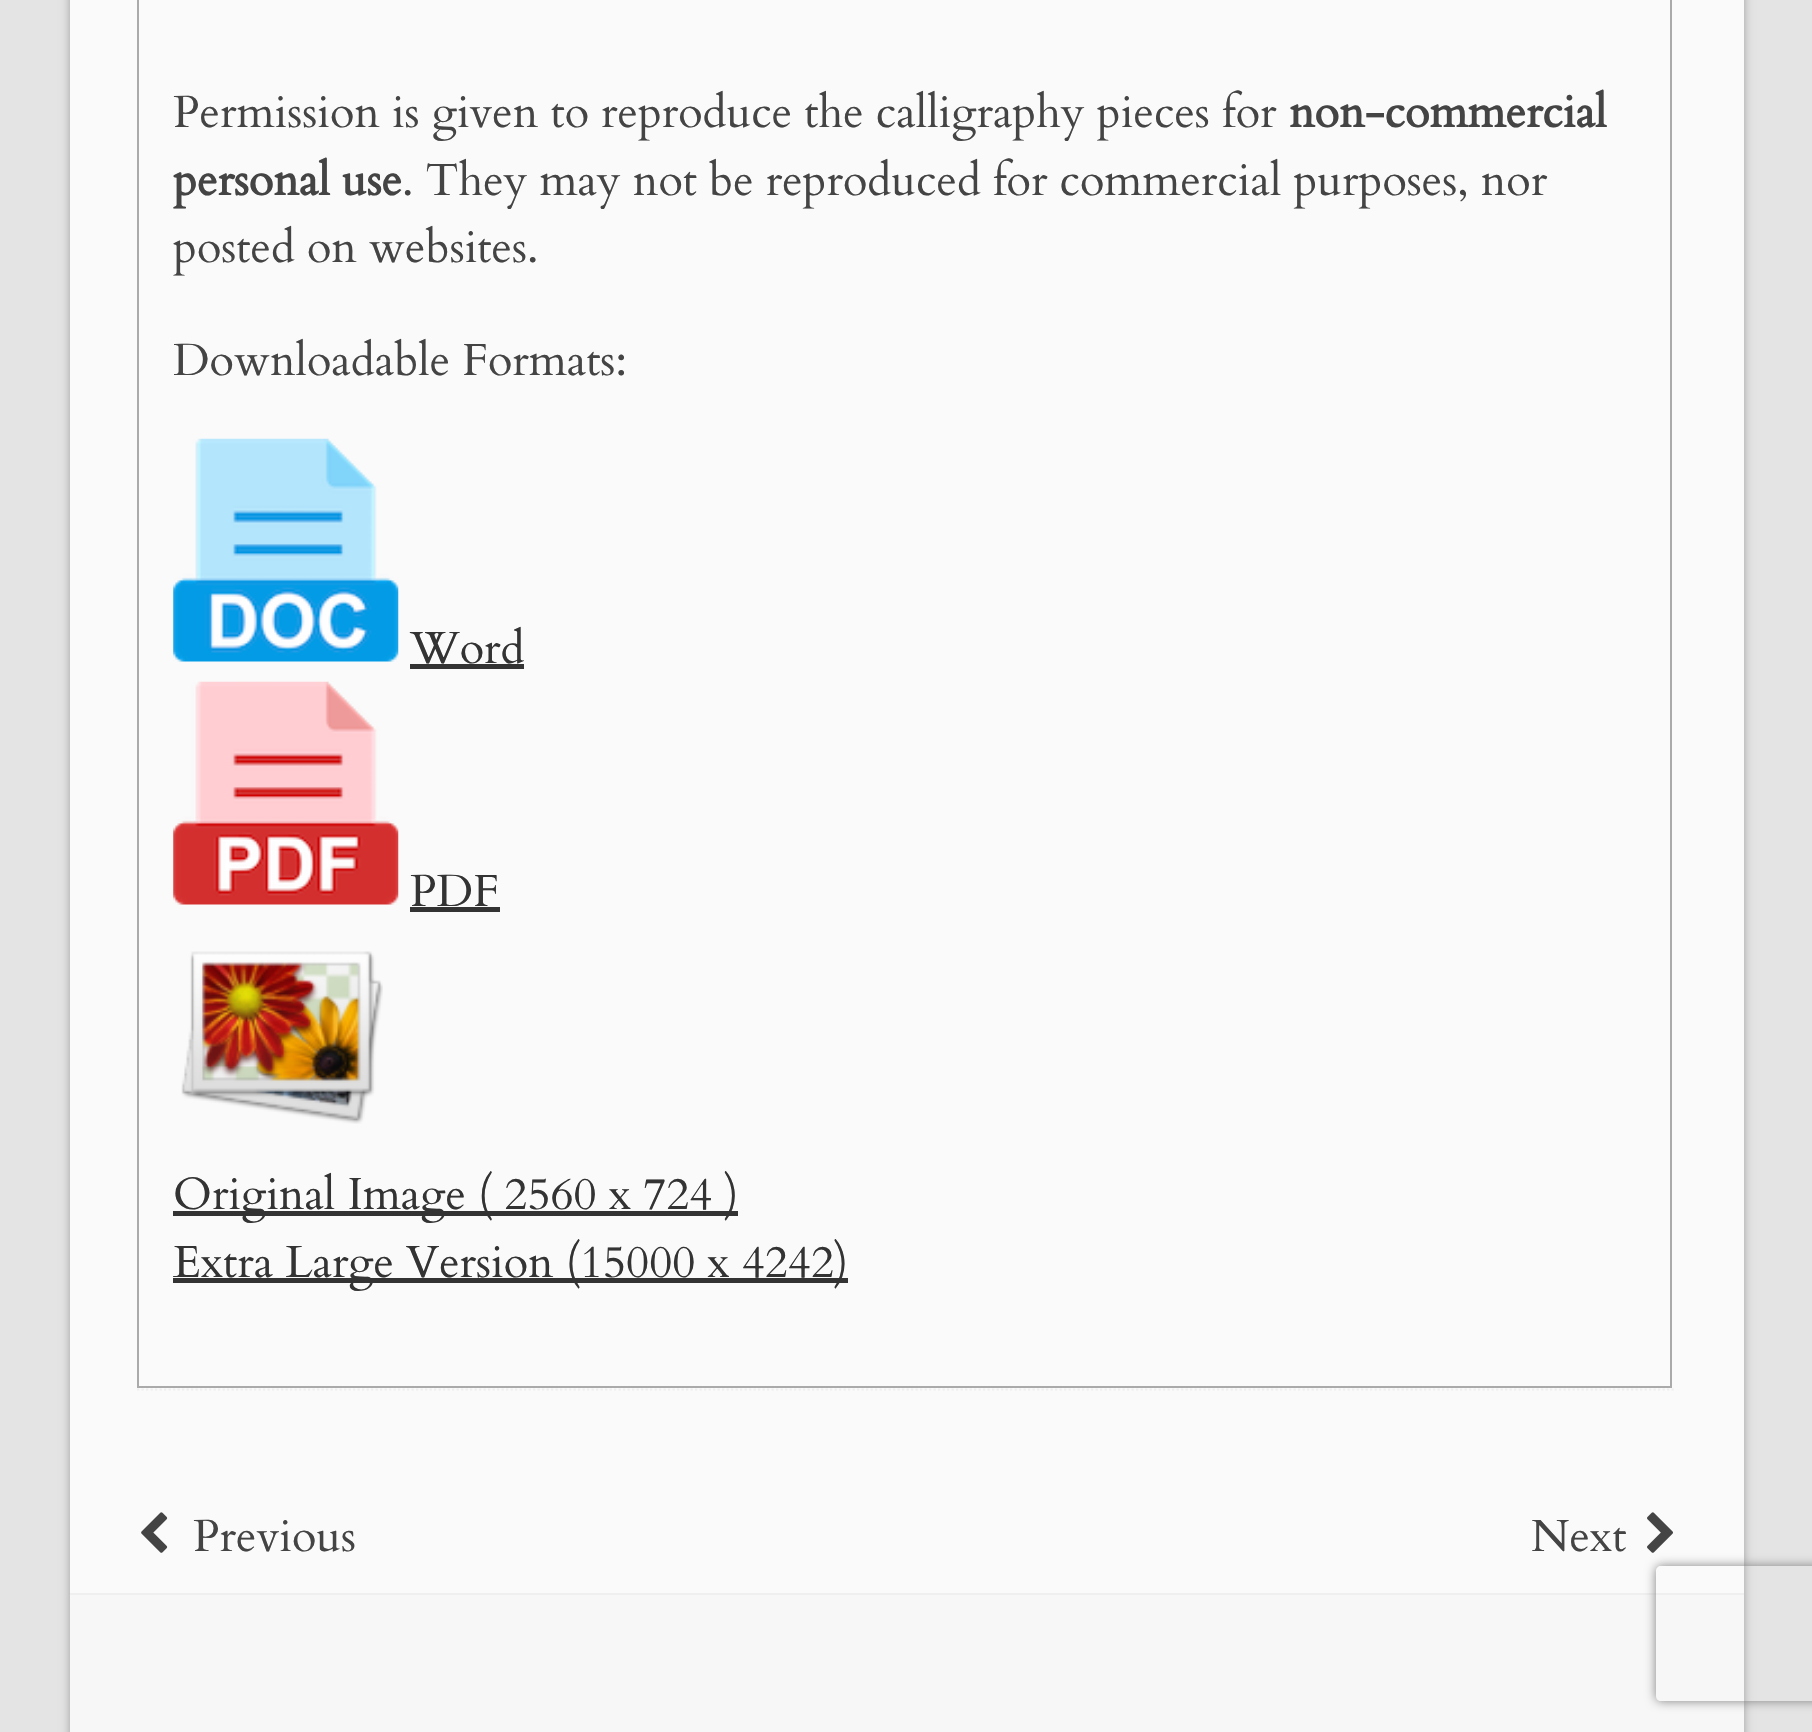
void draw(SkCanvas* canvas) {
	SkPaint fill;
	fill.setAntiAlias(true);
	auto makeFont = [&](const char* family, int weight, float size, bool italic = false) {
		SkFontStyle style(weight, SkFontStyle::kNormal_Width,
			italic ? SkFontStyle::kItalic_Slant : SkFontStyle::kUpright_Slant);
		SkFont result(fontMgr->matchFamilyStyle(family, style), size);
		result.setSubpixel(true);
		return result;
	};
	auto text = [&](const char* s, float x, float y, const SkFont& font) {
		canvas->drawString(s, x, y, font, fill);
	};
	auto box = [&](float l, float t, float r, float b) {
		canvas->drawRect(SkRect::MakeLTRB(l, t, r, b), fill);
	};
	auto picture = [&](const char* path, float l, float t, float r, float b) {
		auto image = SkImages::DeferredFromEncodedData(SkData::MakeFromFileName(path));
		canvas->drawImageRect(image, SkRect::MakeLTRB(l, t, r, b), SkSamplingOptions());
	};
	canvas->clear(0xFFE4E4E4);
	fill.setColor(0x4D000000);
	fill.setMaskFilter(SkMaskFilter::MakeBlur(kNormal_SkBlurStyle, 4.5f));
	canvas->drawRect(SkRect::MakeLTRB(70, -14, 1744, 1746), fill);
	fill.setMaskFilter(nullptr);
	fill.setColor(0xFFFAFAFA);
	box(70, 0, 1744, 1593);
	fill.setStyle(SkPaint::kStroke_Style);
	fill.setStrokeWidth(2);
	fill.setColor(0xFFAAAAAA);
	canvas->drawRect(SkRect::MakeLTRB(138, -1, 1671, 1387), fill);
	picture("image0.png", 173, 438, 399, 662);
	fill.setStyle(SkPaint::kFill_Style);
	fill.setColor(0xFF333333);
	box(410, 664, 524, 669);
	picture("image1.png", 173, 681, 399, 905);
	box(410, 907, 500, 912);
	picture("image2.png", 181, 951, 383, 1124);
	box(173, 1211, 738, 1216);
	box(173, 1278, 848, 1283);
	fill.setStyle(SkPaint::kStroke_Style);
	fill.setStrokeWidth(2.2f);
	fill.setColor(0xFFEFEFEF);
	fill.setPathEffect(SkDashPathEffect::Make({{2.25f, 2.25f}}, 0));
	canvas->drawPath(SkPathBuilder().moveTo(137, 1389.5f).lineTo(1676, 1389.5f).detach(), fill);
	fill.setPathEffect(nullptr);
	picture("image3.png", 141, 1512, 168, 1553);
	picture("image4.png", 1647, 1512, 1673, 1553);
	fill.setStyle(SkPaint::kFill_Style);
	fill.setColor(0xFFF7F7F7);
	box(70, 1595, 1744, 1732);
	fill.setColor(0xFFEFEFEF);
	box(70, 1593, 1744, 1595);
	canvas->save();
	canvas->clipPath(SkPathBuilder(SkPathFillType::kEvenOdd).moveTo(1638, 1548).lineTo(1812, 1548).lineTo(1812, 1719).lineTo(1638, 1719).close().moveTo(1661, 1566).lineTo(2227, 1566).cubicTo(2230, 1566, 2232, 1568, 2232, 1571).lineTo(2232, 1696).cubicTo(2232, 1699, 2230, 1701, 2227, 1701).lineTo(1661, 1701).cubicTo(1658, 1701, 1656, 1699, 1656, 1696).lineTo(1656, 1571).cubicTo(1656, 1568, 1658, 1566, 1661, 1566).close().detach(), true);
	fill.setColor(0xFF808080);
	fill.setMaskFilter(SkMaskFilter::MakeBlur(kNormal_SkBlurStyle, 5.5f));
	canvas->drawRoundRect(SkRect::MakeLTRB(1656, 1566, 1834, 1701), 5, 5, fill);
	fill.setMaskFilter(nullptr);
	canvas->restore();
	auto font1 = makeFont("Cardo", 400, 45);
	fill.setColor(0xFF444444);
	text("Permission is given to reproduce the calligraphy pieces for", 173, 127, font1);
	auto font2 = makeFont("Cardo", 700, 45);
	text("non-commercial", 1289, 127, font2);
	text("personal use", 173, 195, font2);
	text(". They may not be reproduced for commercial purposes, nor", 402, 195, font1);
	text("posted on websites.", 173, 262, font1);
	text("Downloadable Formats:", 173, 375, font1);
	fill.setColor(0xFF333333);
	text("Word", 410, 663, font1);
	text("PDF", 410, 906, font1);
	text("Original Image ( 2560 x 724 )", 173, 1209, font1);
	text("Extra Large Version (15000 x 4242)", 173, 1277, font1);
	fill.setColor(0xFF444444);
	text("Previous", 193, 1551, font1);
	text("Next", 1531, 1551, font1);
}
